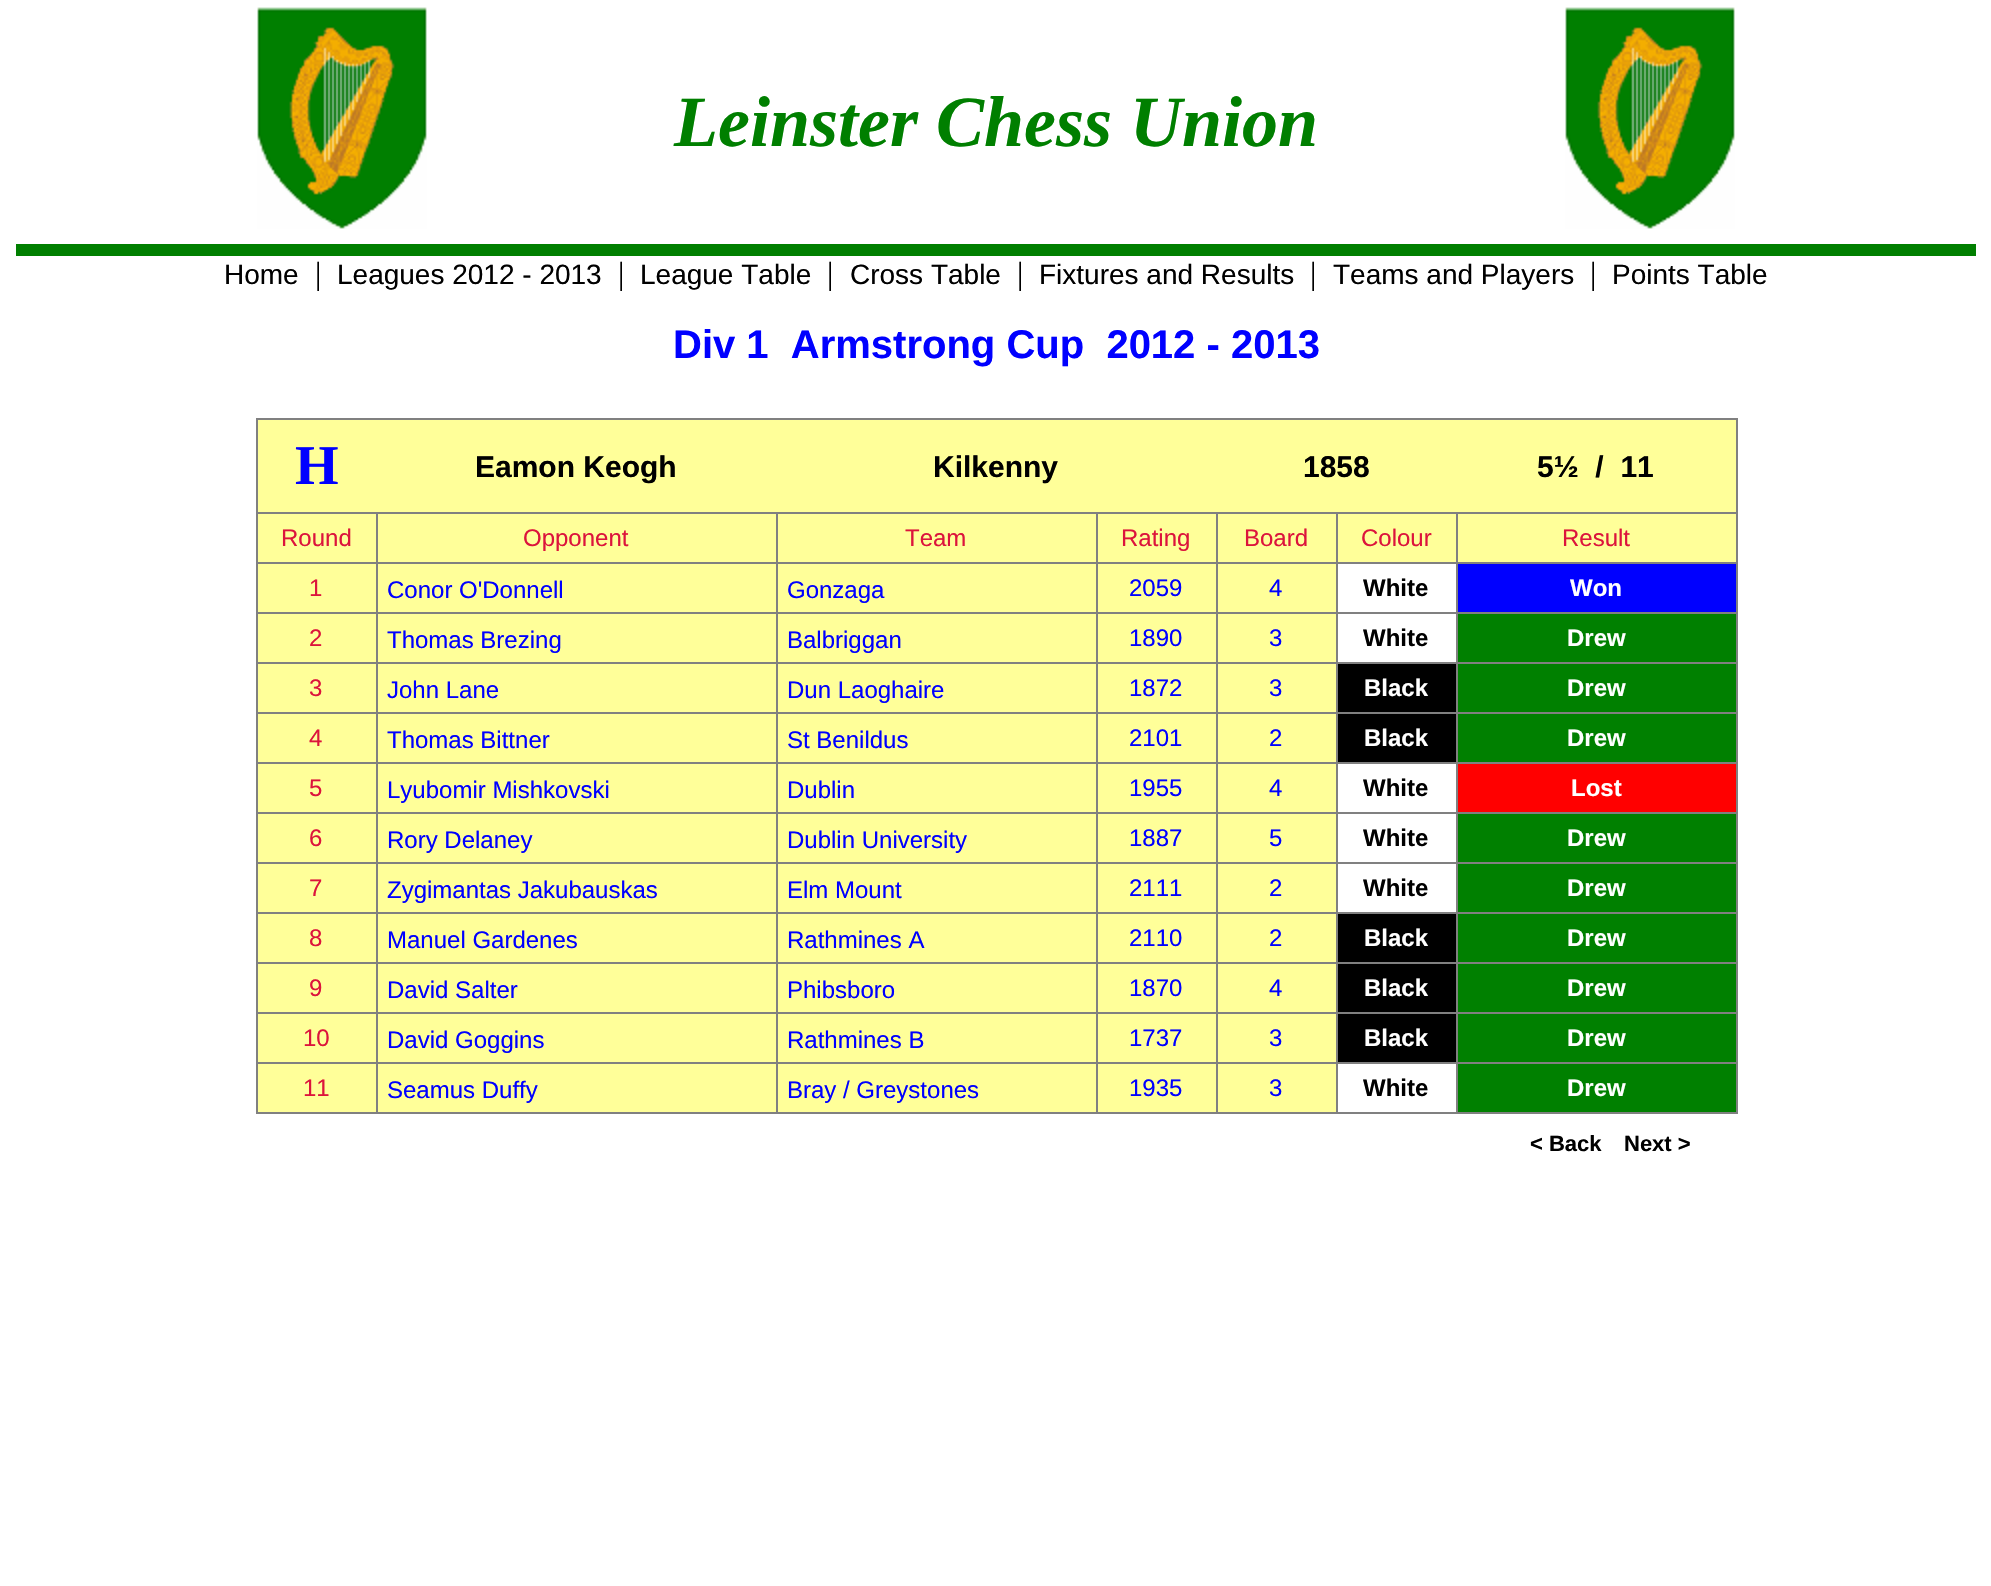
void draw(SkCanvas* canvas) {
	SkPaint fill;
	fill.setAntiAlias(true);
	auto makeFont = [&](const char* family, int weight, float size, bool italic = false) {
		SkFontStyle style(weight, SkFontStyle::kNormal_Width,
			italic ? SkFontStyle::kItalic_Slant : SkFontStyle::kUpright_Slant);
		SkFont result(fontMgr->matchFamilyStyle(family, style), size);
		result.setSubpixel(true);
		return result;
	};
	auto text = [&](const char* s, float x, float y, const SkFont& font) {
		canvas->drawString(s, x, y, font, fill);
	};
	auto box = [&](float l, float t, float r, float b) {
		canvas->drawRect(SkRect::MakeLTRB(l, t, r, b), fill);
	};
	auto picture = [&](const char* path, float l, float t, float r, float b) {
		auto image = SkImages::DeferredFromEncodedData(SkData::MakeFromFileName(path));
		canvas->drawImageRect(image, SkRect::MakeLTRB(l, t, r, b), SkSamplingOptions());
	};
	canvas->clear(0xFFFFFFFF);
	fill.setColor(0xFF007F00);
	box(16, 244, 1976, 256);
	picture("image0.png", 257, 7, 427, 229);
	picture("image0.png", 1565, 7, 1735, 229);
	fill.setColor(0xFFFFFF99);
	box(258, 420, 1736, 1112);
	fill.setColor(0xFF808080);
	box(256, 418, 1738, 420);
	box(1736, 418, 1738, 1114);
	box(256, 1112, 1738, 1114);
	box(256, 418, 258, 1114);
	box(1456, 512, 1738, 514);
	box(1456, 562, 1738, 564);
	box(1456, 612, 1738, 614);
	box(1456, 662, 1738, 664);
	box(1456, 712, 1738, 714);
	box(1456, 762, 1738, 764);
	box(1456, 812, 1738, 814);
	box(1456, 862, 1738, 864);
	box(1456, 912, 1738, 914);
	box(1456, 962, 1738, 964);
	box(1456, 1012, 1738, 1014);
	box(1456, 1062, 1738, 1064);
	box(1456, 1062, 1458, 1114);
	box(1336, 1062, 1458, 1064);
	box(1456, 1012, 1458, 1064);
	box(1336, 1012, 1458, 1014);
	box(1456, 962, 1458, 1014);
	box(1336, 962, 1458, 964);
	box(1456, 912, 1458, 964);
	box(1336, 912, 1458, 914);
	box(1456, 862, 1458, 914);
	box(1336, 862, 1458, 864);
	box(1456, 812, 1458, 864);
	box(1336, 812, 1458, 814);
	box(1456, 762, 1458, 814);
	box(1336, 762, 1458, 764);
	box(1456, 712, 1458, 764);
	box(1336, 712, 1458, 714);
	box(1456, 662, 1458, 714);
	box(1336, 662, 1458, 664);
	box(1456, 612, 1458, 664);
	box(1336, 612, 1458, 614);
	box(1456, 562, 1458, 614);
	box(1336, 562, 1458, 564);
	box(1456, 512, 1458, 564);
	box(1336, 512, 1458, 514);
	box(1336, 1062, 1338, 1114);
	box(1216, 1062, 1338, 1064);
	box(1336, 1012, 1338, 1064);
	box(1216, 1012, 1338, 1014);
	box(1336, 962, 1338, 1014);
	box(1216, 962, 1338, 964);
	box(1336, 912, 1338, 964);
	box(1216, 912, 1338, 914);
	box(1336, 862, 1338, 914);
	box(1216, 862, 1338, 864);
	box(1336, 812, 1338, 864);
	box(1216, 812, 1338, 814);
	box(1336, 762, 1338, 814);
	box(1216, 762, 1338, 764);
	box(1336, 712, 1338, 764);
	box(1216, 712, 1338, 714);
	box(1336, 662, 1338, 714);
	box(1216, 662, 1338, 664);
	box(1336, 612, 1338, 664);
	box(1216, 612, 1338, 614);
	box(1336, 562, 1338, 614);
	box(1216, 562, 1338, 564);
	box(1336, 512, 1338, 564);
	box(1216, 512, 1338, 514);
	box(1216, 1062, 1218, 1114);
	box(1096, 1062, 1218, 1064);
	box(1216, 1012, 1218, 1064);
	box(1096, 1012, 1218, 1014);
	box(1216, 962, 1218, 1014);
	box(1096, 962, 1218, 964);
	box(1216, 912, 1218, 964);
	box(1096, 912, 1218, 914);
	box(1216, 862, 1218, 914);
	box(1096, 862, 1218, 864);
	box(1216, 812, 1218, 864);
	box(1096, 812, 1218, 814);
	box(1216, 762, 1218, 814);
	box(1096, 762, 1218, 764);
	box(1216, 712, 1218, 764);
	box(1096, 712, 1218, 714);
	box(1216, 662, 1218, 714);
	box(1096, 662, 1218, 664);
	box(1216, 612, 1218, 664);
	box(1096, 612, 1218, 614);
	box(1216, 562, 1218, 614);
	box(1096, 562, 1218, 564);
	box(1216, 512, 1218, 564);
	box(1096, 512, 1218, 514);
	box(1096, 1062, 1098, 1114);
	box(776, 1062, 1098, 1064);
	box(1096, 1012, 1098, 1064);
	box(776, 1012, 1098, 1014);
	box(1096, 962, 1098, 1014);
	box(776, 962, 1098, 964);
	box(1096, 912, 1098, 964);
	box(776, 912, 1098, 914);
	box(1096, 862, 1098, 914);
	box(776, 862, 1098, 864);
	box(1096, 812, 1098, 864);
	box(776, 812, 1098, 814);
	box(1096, 762, 1098, 814);
	box(776, 762, 1098, 764);
	box(1096, 712, 1098, 764);
	box(776, 712, 1098, 714);
	box(1096, 662, 1098, 714);
	box(776, 662, 1098, 664);
	box(1096, 612, 1098, 664);
	box(776, 612, 1098, 614);
	box(1096, 562, 1098, 614);
	box(776, 562, 1098, 564);
	box(1096, 512, 1098, 564);
	box(776, 512, 1098, 514);
	box(776, 1062, 778, 1114);
	box(376, 1062, 778, 1064);
	box(776, 1012, 778, 1064);
	box(376, 1012, 778, 1014);
	box(776, 962, 778, 1014);
	box(376, 962, 778, 964);
	box(776, 912, 778, 964);
	box(376, 912, 778, 914);
	box(776, 862, 778, 914);
	box(376, 862, 778, 864);
	box(776, 812, 778, 864);
	box(376, 812, 778, 814);
	box(776, 762, 778, 814);
	box(376, 762, 778, 764);
	box(776, 712, 778, 764);
	box(376, 712, 778, 714);
	box(776, 662, 778, 714);
	box(376, 662, 778, 664);
	box(776, 612, 778, 664);
	box(376, 612, 778, 614);
	box(776, 562, 778, 614);
	box(376, 562, 778, 564);
	box(776, 512, 778, 564);
	box(376, 512, 778, 514);
	box(376, 1062, 378, 1114);
	box(256, 1062, 378, 1064);
	box(376, 1012, 378, 1064);
	box(256, 1012, 378, 1014);
	box(376, 962, 378, 1014);
	box(256, 962, 378, 964);
	box(376, 912, 378, 964);
	box(256, 912, 378, 914);
	box(376, 862, 378, 914);
	box(256, 862, 378, 864);
	box(376, 812, 378, 864);
	box(256, 812, 378, 814);
	box(376, 762, 378, 814);
	box(256, 762, 378, 764);
	box(376, 712, 378, 764);
	box(256, 712, 378, 714);
	box(376, 662, 378, 714);
	box(256, 662, 378, 664);
	box(376, 612, 378, 664);
	box(256, 612, 378, 614);
	box(376, 562, 378, 614);
	box(256, 562, 378, 564);
	box(376, 512, 378, 564);
	box(256, 512, 378, 514);
	fill.setColor(0xFFFFFFFF);
	box(1338, 564, 1456, 612);
	fill.setColor(0xFF0000FF);
	box(1458, 564, 1736, 612);
	fill.setColor(0xFFFFFFFF);
	box(1338, 614, 1456, 662);
	fill.setColor(0xFF008000);
	box(1458, 614, 1736, 662);
	fill.setColor(0xFF000000);
	box(1338, 664, 1456, 712);
	fill.setColor(0xFF008000);
	box(1458, 664, 1736, 712);
	fill.setColor(0xFF000000);
	box(1338, 714, 1456, 762);
	fill.setColor(0xFF008000);
	box(1458, 714, 1736, 762);
	fill.setColor(0xFFFFFFFF);
	box(1338, 764, 1456, 812);
	fill.setColor(0xFFFF0000);
	box(1458, 764, 1736, 812);
	fill.setColor(0xFFFFFFFF);
	box(1338, 814, 1456, 862);
	fill.setColor(0xFF008000);
	box(1458, 814, 1736, 862);
	fill.setColor(0xFFFFFFFF);
	box(1338, 864, 1456, 912);
	fill.setColor(0xFF008000);
	box(1458, 864, 1736, 912);
	fill.setColor(0xFF000000);
	box(1338, 914, 1456, 962);
	fill.setColor(0xFF008000);
	box(1458, 914, 1736, 962);
	fill.setColor(0xFF000000);
	box(1338, 964, 1456, 1012);
	fill.setColor(0xFF008000);
	box(1458, 964, 1736, 1012);
	fill.setColor(0xFF000000);
	box(1338, 1014, 1456, 1062);
	fill.setColor(0xFF008000);
	box(1458, 1014, 1736, 1062);
	fill.setColor(0xFFFFFFFF);
	box(1338, 1064, 1456, 1112);
	fill.setColor(0xFF008000);
	box(1458, 1064, 1736, 1112);
	auto font1 = makeFont("Liberation Serif", 700, 72, true);
	fill.setColor(0xFF007F00);
	text("Leinster Chess Union", 674, 146, font1);
	auto font2 = makeFont("Liberation Sans", 400, 28);
	fill.setColor(0xFF000000);
	text("Home", 224, 284, font2);
	auto font3 = makeFont("Liberation Serif", 400, 32);
	text("|", 315, 284, font3);
	text("Leagues 2012 - 2013", 337, 284, font2);
	text("|", 618, 284, font3);
	text("League Table", 640, 284, font2);
	text("|", 827, 284, font3);
	text("Cross Table", 850, 284, font2);
	text("|", 1017, 284, font3);
	text("Fixtures and Results", 1039, 284, font2);
	text("|", 1310, 284, font3);
	text("Teams and Players", 1333, 284, font2);
	text("|", 1590, 284, font3);
	text("Points Table", 1612, 284, font2);
	auto font4 = makeFont("Liberation Sans", 700, 40);
	fill.setColor(0xFF0000FF);
	text("Div 1  Armstrong Cup  2012 - 2013", 673, 358, font4);
	auto font5 = makeFont("Liberation Serif", 700, 56);
	text("H", 295, 484, font5);
	auto font6 = makeFont("Liberation Sans", 700, 30);
	fill.setColor(0xFF000000);
	text("Eamon Keogh", 475, 477, font6);
	text("Kilkenny", 933, 477, font6);
	text("1858", 1303, 477, font6);
	text("5½  /  11", 1537, 477, font6);
	auto font7 = makeFont("Liberation Sans", 400, 24);
	fill.setColor(0xFFDC143C);
	text("Round", 281, 546, font7);
	text("Opponent", 523, 546, font7);
	text("Team", 905, 546, font7);
	text("Rating", 1121, 546, font7);
	text("Board", 1244, 546, font7);
	text("Colour", 1361, 546, font7);
	text("Result", 1562, 546, font7);
	text("1", 309, 596, font7);
	fill.setColor(0xFF0000FF);
	text("Conor O'Donnell", 387, 598, font7);
	text("Gonzaga", 787, 598, font7);
	text("2059", 1129, 596, font7);
	text("4", 1269, 596, font7);
	auto font8 = makeFont("Liberation Sans", 700, 24);
	fill.setColor(0xFF000000);
	text("White", 1363, 596, font8);
	fill.setColor(0xFFFFFFFF);
	text("Won", 1570, 596, font8);
	fill.setColor(0xFFDC143C);
	text("2", 309, 646, font7);
	fill.setColor(0xFF0000FF);
	text("Thomas Brezing", 387, 648, font7);
	text("Balbriggan", 787, 648, font7);
	text("1890", 1129, 646, font7);
	text("3", 1269, 646, font7);
	fill.setColor(0xFF000000);
	text("White", 1363, 646, font8);
	fill.setColor(0xFFFFFFFF);
	text("Drew", 1567, 646, font8);
	fill.setColor(0xFFDC143C);
	text("3", 309, 696, font7);
	fill.setColor(0xFF0000FF);
	text("John Lane", 387, 698, font7);
	text("Dun Laoghaire", 787, 698, font7);
	text("1872", 1129, 696, font7);
	text("3", 1269, 696, font7);
	fill.setColor(0xFFFFFFFF);
	text("Black", 1364, 696, font8);
	text("Drew", 1567, 696, font8);
	fill.setColor(0xFFDC143C);
	text("4", 309, 746, font7);
	fill.setColor(0xFF0000FF);
	text("Thomas Bittner", 387, 748, font7);
	text("St Benildus", 787, 748, font7);
	text("2101", 1129, 746, font7);
	text("2", 1269, 746, font7);
	fill.setColor(0xFFFFFFFF);
	text("Black", 1364, 746, font8);
	text("Drew", 1567, 746, font8);
	fill.setColor(0xFFDC143C);
	text("5", 309, 796, font7);
	fill.setColor(0xFF0000FF);
	text("Lyubomir Mishkovski", 387, 798, font7);
	text("Dublin", 787, 798, font7);
	text("1955", 1129, 796, font7);
	text("4", 1269, 796, font7);
	fill.setColor(0xFF000000);
	text("White", 1363, 796, font8);
	fill.setColor(0xFFFFFFFF);
	text("Lost", 1571, 796, font8);
	fill.setColor(0xFFDC143C);
	text("6", 309, 846, font7);
	fill.setColor(0xFF0000FF);
	text("Rory Delaney", 387, 848, font7);
	text("Dublin University", 787, 848, font7);
	text("1887", 1129, 846, font7);
	text("5", 1269, 846, font7);
	fill.setColor(0xFF000000);
	text("White", 1363, 846, font8);
	fill.setColor(0xFFFFFFFF);
	text("Drew", 1567, 846, font8);
	fill.setColor(0xFFDC143C);
	text("7", 309, 896, font7);
	fill.setColor(0xFF0000FF);
	text("Zygimantas Jakubauskas", 387, 898, font7);
	text("Elm Mount", 787, 898, font7);
	text("2111", 1129, 896, font7);
	text("2", 1269, 896, font7);
	fill.setColor(0xFF000000);
	text("White", 1363, 896, font8);
	fill.setColor(0xFFFFFFFF);
	text("Drew", 1567, 896, font8);
	fill.setColor(0xFFDC143C);
	text("8", 309, 946, font7);
	fill.setColor(0xFF0000FF);
	text("Manuel Gardenes", 387, 948, font7);
	text("Rathmines A", 787, 948, font7);
	text("2110", 1129, 946, font7);
	text("2", 1269, 946, font7);
	fill.setColor(0xFFFFFFFF);
	text("Black", 1364, 946, font8);
	text("Drew", 1567, 946, font8);
	fill.setColor(0xFFDC143C);
	text("9", 309, 996, font7);
	fill.setColor(0xFF0000FF);
	text("David Salter", 387, 998, font7);
	text("Phibsboro", 787, 998, font7);
	text("1870", 1129, 996, font7);
	text("4", 1269, 996, font7);
	fill.setColor(0xFFFFFFFF);
	text("Black", 1364, 996, font8);
	text("Drew", 1567, 996, font8);
	fill.setColor(0xFFDC143C);
	text("10", 303, 1046, font7);
	fill.setColor(0xFF0000FF);
	text("David Goggins", 387, 1048, font7);
	text("Rathmines B", 787, 1048, font7);
	text("1737", 1129, 1046, font7);
	text("3", 1269, 1046, font7);
	fill.setColor(0xFFFFFFFF);
	text("Black", 1364, 1046, font8);
	text("Drew", 1567, 1046, font8);
	fill.setColor(0xFFDC143C);
	text("11", 303, 1096, font7);
	fill.setColor(0xFF0000FF);
	text("Seamus Duffy", 387, 1098, font7);
	text("Bray / Greystones", 787, 1098, font7);
	text("1935", 1129, 1096, font7);
	text("3", 1269, 1096, font7);
	fill.setColor(0xFF000000);
	text("White", 1363, 1096, font8);
	fill.setColor(0xFFFFFFFF);
	text("Drew", 1567, 1096, font8);
	auto font9 = makeFont("Liberation Sans", 700, 22);
	fill.setColor(0xFF000000);
	text("< Back", 1530, 1151, font9);
	text("Next >", 1624, 1151, font9);
}
